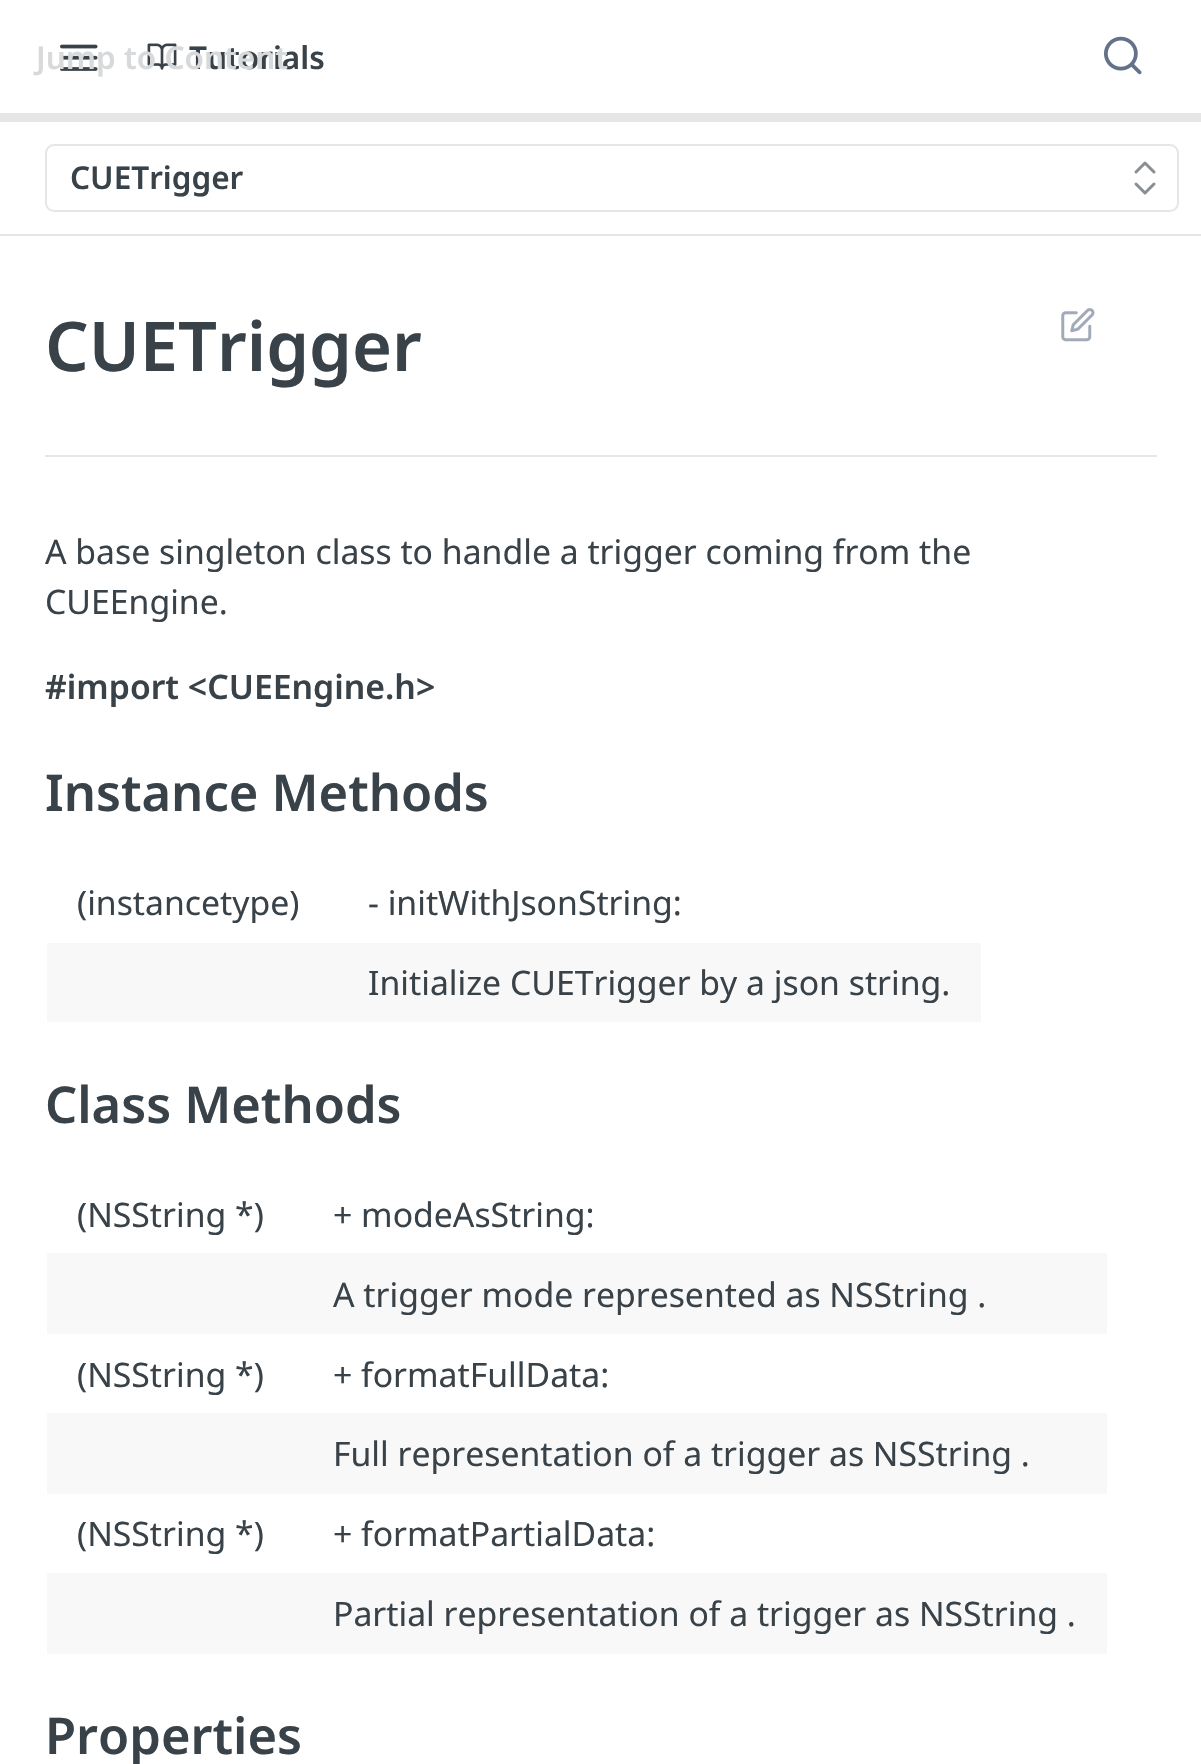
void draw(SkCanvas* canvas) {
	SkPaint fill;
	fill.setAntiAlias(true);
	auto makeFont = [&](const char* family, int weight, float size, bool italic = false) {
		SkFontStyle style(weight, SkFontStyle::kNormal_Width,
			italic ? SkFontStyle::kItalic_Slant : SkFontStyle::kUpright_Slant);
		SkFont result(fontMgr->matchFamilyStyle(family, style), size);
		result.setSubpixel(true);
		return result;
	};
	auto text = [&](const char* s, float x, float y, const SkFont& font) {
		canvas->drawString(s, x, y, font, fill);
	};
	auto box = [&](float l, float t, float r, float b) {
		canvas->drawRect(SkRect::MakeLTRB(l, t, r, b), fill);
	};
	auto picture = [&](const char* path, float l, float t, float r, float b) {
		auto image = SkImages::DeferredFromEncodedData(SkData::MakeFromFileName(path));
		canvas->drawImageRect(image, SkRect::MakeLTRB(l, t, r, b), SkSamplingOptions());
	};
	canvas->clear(0xFFFFFFFF);
	fill.setColor(0xFFE6E6E6);
	canvas->drawPath(SkPathBuilder().moveTo(0, 234).lineTo(0, 236).lineTo(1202, 236).lineTo(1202, 2).lineTo(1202, 234).close().detach(), fill);
	box(0, 113, 1201, 122);
	picture("image0.png", 60, 44, 98, 71);
	picture("image1.png", 147, 43, 177, 70);
	picture("image2.png", 1104, 36, 1142, 75);
	fill.setStyle(SkPaint::kStroke_Style);
	fill.setStrokeWidth(2);
	canvas->drawRoundRect(SkRect::MakeLTRB(46, 145, 1178, 211), 8, 8, fill);
	fill.setStrokeWidth(3);
	fill.setStrokeCap(SkPaint::kRound_Cap);
	fill.setStrokeJoin(SkPaint::kRound_Join);
	fill.setColor(0xFF888E91);
	canvas->drawPath(SkPathBuilder().moveTo(1136, 184).lineTo(1145, 193).lineTo(1154, 184).moveTo(1154, 172).lineTo(1145, 163).lineTo(1136, 172).detach(), fill);
	fill.setStyle(SkPaint::kFill_Style);
	fill.setColor(0xFFE6E6E6);
	box(45, 455, 1157, 457);
	picture("image3.png", 1061, 308, 1095, 342);
	fill.setColor(0xFFF8F8F8);
	box(47, 943, 981, 1022);
	box(47, 1253, 1107, 1334);
	box(47, 1413, 1107, 1494);
	box(47, 1573, 1107, 1654);
	auto font1 = makeFont("Noto Sans", 600, 31.5f);
	fill.setColor(0xFF384248);
	text("Tutorials", 189, 69, font1);
	fill.setColor(0xFFD7D9DA);
	text("Jump to Content", 36, 69, font1);
	fill.setColor(0xFF384248);
	text("CUETrigger", 70, 189, font1);
	auto font2 = makeFont("Noto Sans", 600, 68.5f);
	text("CUETrigger", 45, 371, font2);
	auto font3 = makeFont("Noto Sans", 400, 33.75f);
	text("A base singleton class to handle a trigger coming from the", 45, 564, font3);
	text("CUEEngine.", 45, 614, font3);
	auto font4 = makeFont("Noto Sans", 600, 33.75f);
	text("#import <CUEEngine.h>", 45, 699, font4);
	auto font5 = makeFont("Noto Sans", 600, 50.6f);
	text("Instance Methods", 45, 811, font5);
	text("(instancetype)", 77, 915, font3);
	text("- initWithJsonString:", 368, 915, font3);
	text("Initialize CUETrigger by a json string.", 368, 995, font3);
	text("Class Methods", 45, 1123, font5);
	text("(NSString *)", 77, 1227, font3);
	text("+ modeAsString:", 333, 1227, font3);
	text("A trigger mode represented as NSString .", 333, 1307, font3);
	text("(NSString *)", 77, 1387, font3);
	text("+ formatFullData:", 333, 1387, font3);
	text("Full representation of a trigger as NSString .", 333, 1466, font3);
	text("(NSString *)", 77, 1546, font3);
	text("+ formatPartialData:", 333, 1546, font3);
	text("Partial representation of a trigger as NSString .", 333, 1626, font3);
	text("Properties", 45, 1754, font5);
}
